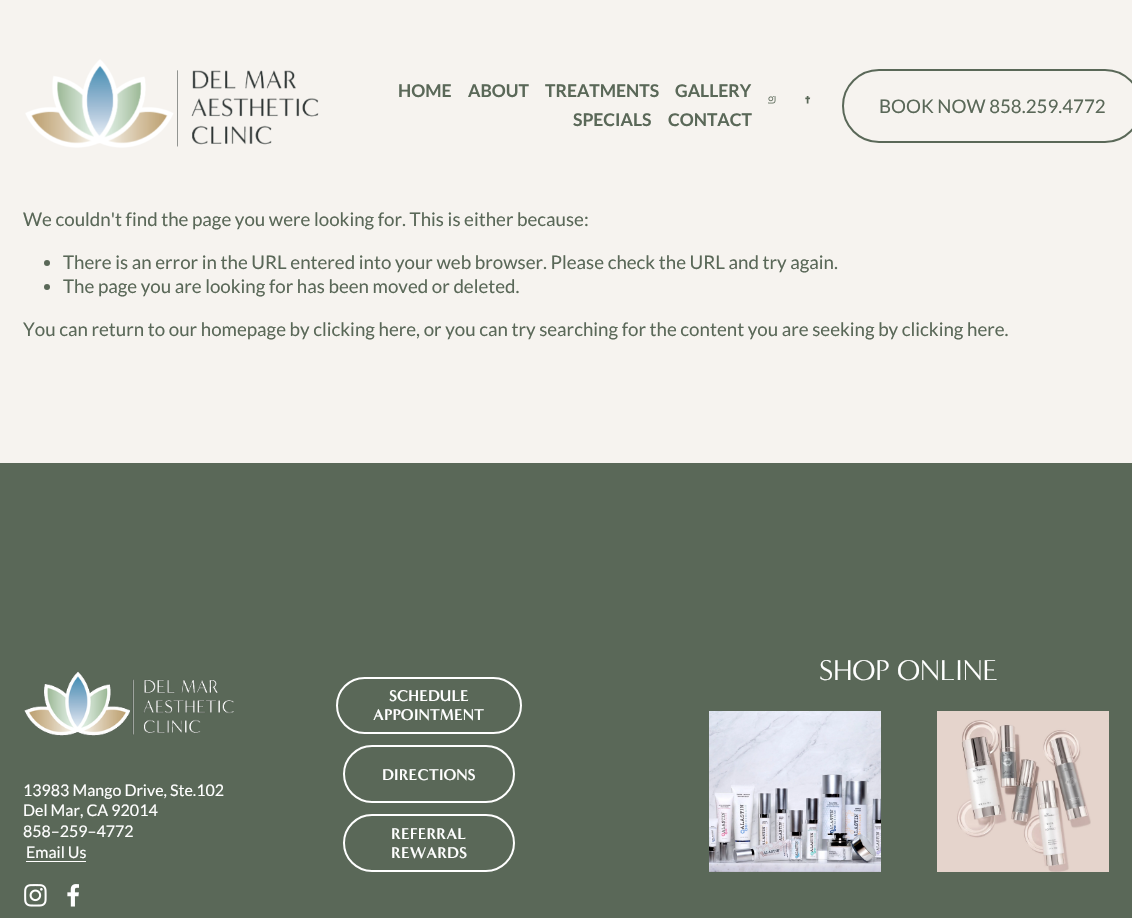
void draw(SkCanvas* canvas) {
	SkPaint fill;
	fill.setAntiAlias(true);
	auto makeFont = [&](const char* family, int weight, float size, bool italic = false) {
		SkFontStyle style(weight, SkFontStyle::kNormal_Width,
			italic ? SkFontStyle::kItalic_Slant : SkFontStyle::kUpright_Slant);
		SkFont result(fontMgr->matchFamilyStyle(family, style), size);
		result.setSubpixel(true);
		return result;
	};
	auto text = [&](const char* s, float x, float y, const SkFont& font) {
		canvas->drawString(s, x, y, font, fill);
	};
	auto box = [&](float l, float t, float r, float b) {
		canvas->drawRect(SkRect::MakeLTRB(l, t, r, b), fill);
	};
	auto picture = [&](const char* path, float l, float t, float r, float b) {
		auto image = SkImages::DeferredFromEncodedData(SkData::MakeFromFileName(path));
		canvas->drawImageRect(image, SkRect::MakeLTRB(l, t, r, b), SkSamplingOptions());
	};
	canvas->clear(0xFFF6F3EF);
	picture("image0.png", 25, 59, 319, 148);
	picture("image1.png", 768, 96, 776, 104);
	picture("image2.png", 805, 96, 811, 104);
	fill.setStyle(SkPaint::kStroke_Style);
	fill.setStrokeWidth(2);
	fill.setColor(0xFF5A6858);
	canvas->drawRoundRect(SkRect::MakeLTRB(843, 70, 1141, 142), 36, 36, fill);
	fill.setStyle(SkPaint::kFill_Style);
	canvas->drawCircle(47, 263, 3, fill);
	canvas->drawCircle(47, 287, 3, fill);
	box(0, 463, 1132, 918);
	picture("image3.png", 24, 671, 234, 736);
	fill.setStyle(SkPaint::kStroke_Style);
	fill.setColor(0xFFFFFFFF);
	canvas->drawRoundRect(SkRect::MakeLTRB(337, 678, 521, 733), 27.5f, 27.5f, fill);
	canvas->drawRoundRect(SkRect::MakeLTRB(344, 746, 514, 802), 28, 28, fill);
	picture("image4.png", 709, 711, 881, 872);
	picture("image5.png", 937, 711, 1109, 872);
	fill.setStyle(SkPaint::kFill_Style);
	box(26, 861, 86, 862);
	fill.setStyle(SkPaint::kStroke_Style);
	canvas->drawRoundRect(SkRect::MakeLTRB(344, 815, 514, 871), 28, 28, fill);
	picture("image6.png", 24, 884, 47, 907);
	picture("image7.png", 67, 884, 79, 907);
	auto font1 = makeFont("Lato", 700, 17.5f);
	fill.setStyle(SkPaint::kFill_Style);
	fill.setColor(0xFF5A6858);
	text("HOME", 398, 97, font1);
	text("ABOUT", 468, 97, font1);
	text("TREATMENTS", 545, 97, font1);
	text("GALLERY", 675, 97, font1);
	text("SPECIALS", 573, 126, font1);
	text("CONTACT", 668, 126, font1);
	auto font2 = makeFont("Lato", 400, 18.72f);
	text("BOOK NOW 858.259.4772", 879, 113, font2);
	text("We couldn't find the page you were looking for. This is either because:", 23, 226, font2);
	text("There is an error in the URL entered into your web browser. Please check the URL and try again.", 63, 269, font2);
	text("The page you are looking for has been moved or deleted.", 63, 293, font2);
	text("You can return to our homepage by clicking here, or you can try searching for the content you are seeking by clicking here.", 23, 336, font2);
	auto font3 = makeFont("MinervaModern", 700, 16);
	fill.setColor(0xFFFFFFFF);
	text("SCHEDULE", 389, 701, font3);
	text("APPOINTMENT", 373, 720, font3);
	auto font4 = makeFont("MinervaModern", 400, 29.5f);
	text("SHOP ONLINE", 819, 680, font4);
	text("DIRECTIONS", 382, 780, font3);
	auto font5 = makeFont("Lato", 400, 16);
	text("13983 Mango Drive, Ste.102", 23, 796, font5);
	text("Del Mar, CA 92014", 23, 816, font5);
	text("858–259–4772", 23, 837, font5);
	text("Email Us", 26, 858, font5);
	text("REFERRAL", 391, 839, font3);
	text("REWARDS", 391, 858, font3);
}
